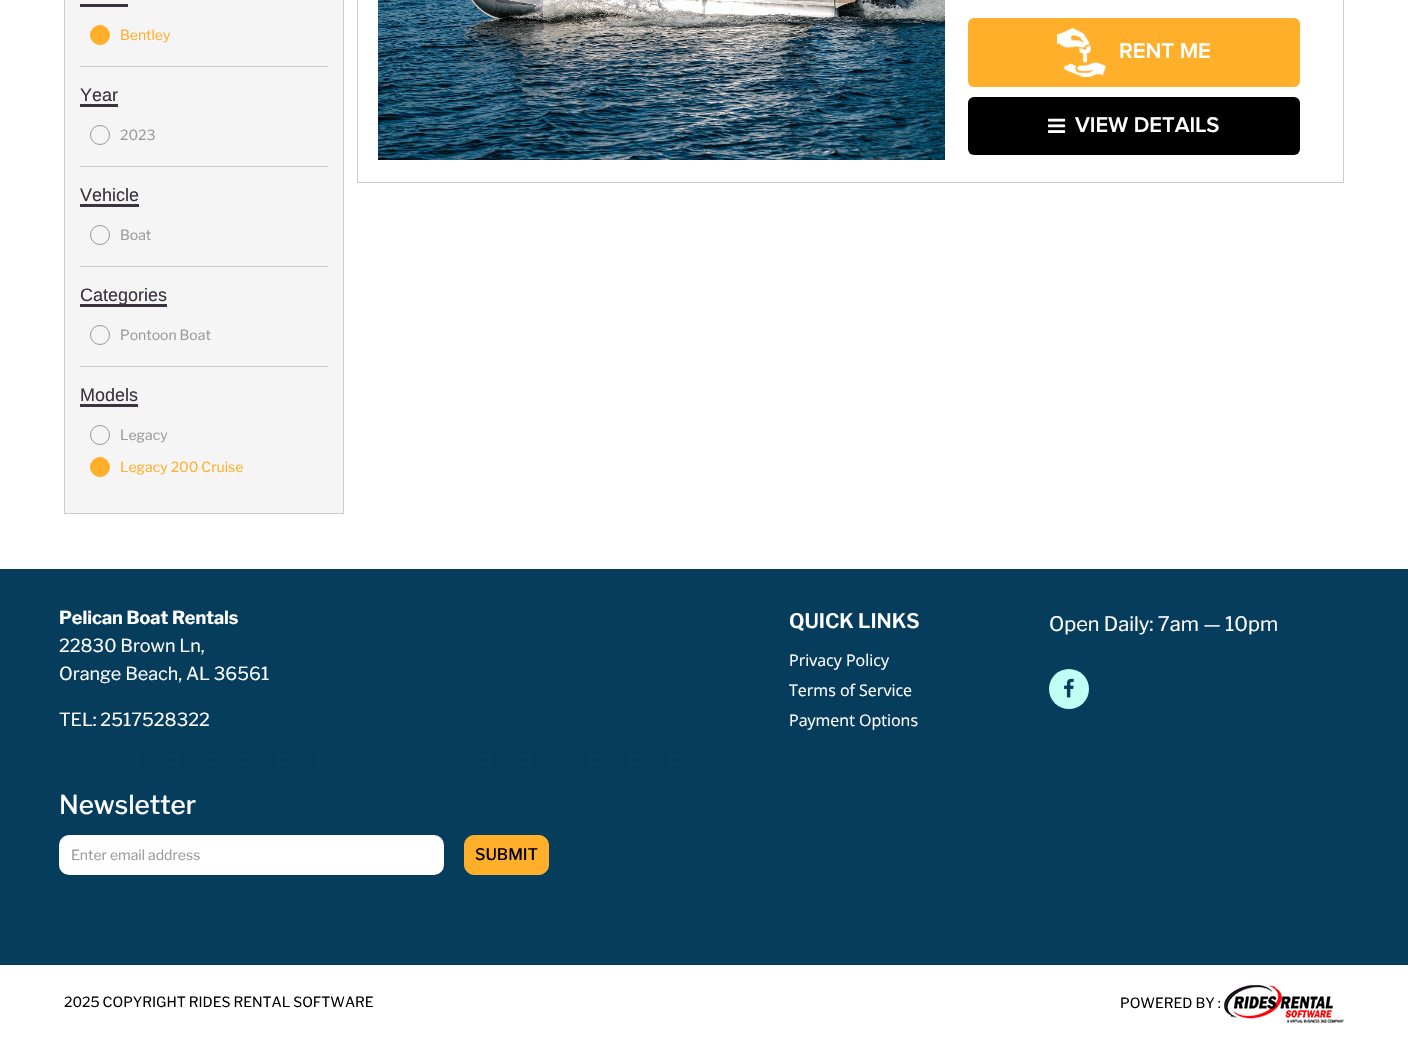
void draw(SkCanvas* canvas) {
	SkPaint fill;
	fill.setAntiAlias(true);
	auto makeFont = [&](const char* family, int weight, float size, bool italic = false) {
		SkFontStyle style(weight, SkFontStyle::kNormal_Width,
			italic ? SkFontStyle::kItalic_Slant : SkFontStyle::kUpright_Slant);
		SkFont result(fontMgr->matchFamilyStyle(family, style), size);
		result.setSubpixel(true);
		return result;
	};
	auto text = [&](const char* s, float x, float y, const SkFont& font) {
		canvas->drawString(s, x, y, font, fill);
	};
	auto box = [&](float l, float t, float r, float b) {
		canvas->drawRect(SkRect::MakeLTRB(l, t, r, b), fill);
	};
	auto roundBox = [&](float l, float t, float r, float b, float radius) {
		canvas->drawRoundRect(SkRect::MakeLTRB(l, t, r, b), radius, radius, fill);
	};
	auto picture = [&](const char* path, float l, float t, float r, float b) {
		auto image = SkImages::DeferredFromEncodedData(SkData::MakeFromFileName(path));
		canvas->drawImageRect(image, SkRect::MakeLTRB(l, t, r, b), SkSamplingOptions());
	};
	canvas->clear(0xFFFFFFFF);
	fill.setColor(0xFFF6F5F5);
	canvas->drawRect(SkRect::MakeLTRB(64.5f, -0.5f, 343.5f, 513.5f), fill);
	fill.setStyle(SkPaint::kStroke_Style);
	fill.setStrokeWidth(1);
	fill.setColor(0xFFCBCCCC);
	canvas->drawRect(SkRect::MakeLTRB(64.5f, -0.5f, 343.5f, 513.5f), fill);
	fill.setStyle(SkPaint::kFill_Style);
	fill.setColor(0xFF3B333F);
	box(80, 4, 128, 7);
	fill.setColor(0xFFFFAF2A);
	canvas->drawCircle(100, 35, 9.5f, fill);
	fill.setStyle(SkPaint::kStroke_Style);
	canvas->drawCircle(100, 35, 9.5f, fill);
	fill.setStyle(SkPaint::kFill_Style);
	fill.setColor(0xFFCBCCCC);
	box(80, 66, 328, 67);
	fill.setColor(0xFF3B333F);
	box(80, 104, 118, 107);
	fill.setStyle(SkPaint::kStroke_Style);
	fill.setColor(0xFF999999);
	canvas->drawCircle(100, 135, 9.5f, fill);
	fill.setStyle(SkPaint::kFill_Style);
	fill.setColor(0xFFCBCCCC);
	box(80, 166, 328, 167);
	fill.setColor(0xFF3B333F);
	box(80, 204, 139, 207);
	fill.setStyle(SkPaint::kStroke_Style);
	fill.setColor(0xFF999999);
	canvas->drawCircle(100, 235, 9.5f, fill);
	fill.setStyle(SkPaint::kFill_Style);
	fill.setColor(0xFFCBCCCC);
	box(80, 266, 328, 267);
	fill.setColor(0xFF3B333F);
	box(80, 304, 167, 307);
	fill.setStyle(SkPaint::kStroke_Style);
	fill.setColor(0xFF999999);
	canvas->drawCircle(100, 335, 9.5f, fill);
	fill.setStyle(SkPaint::kFill_Style);
	fill.setColor(0xFFCBCCCC);
	box(80, 366, 328, 367);
	fill.setColor(0xFF3B333F);
	box(80, 404, 138, 407);
	fill.setStyle(SkPaint::kStroke_Style);
	fill.setColor(0xFF999999);
	canvas->drawCircle(100, 435, 9.5f, fill);
	fill.setStyle(SkPaint::kFill_Style);
	fill.setColor(0xFFFFAF2A);
	canvas->drawCircle(100, 467, 9.5f, fill);
	fill.setStyle(SkPaint::kStroke_Style);
	canvas->drawCircle(100, 467, 9.5f, fill);
	fill.setColor(0xFFCCCCCC);
	canvas->drawRect(SkRect::MakeLTRB(357.5f, -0.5f, 1343.5f, 182.5f), fill);
	picture("image0.png", 378, 0, 945, 160);
	fill.setStyle(SkPaint::kFill_Style);
	fill.setColor(0xFFFFAF2A);
	roundBox(968, 18, 1300, 87, 6);
	picture("image1.png", 1057, 28, 1106, 77);
	fill.setColor(0xFF000000);
	roundBox(968, 97, 1300, 155, 6);
	picture("image2.png", 1048, 118, 1066, 133);
	fill.setColor(0xFF063C5C);
	box(0, 569, 1408, 965);
	fill.setStyle(SkPaint::kStroke_Style);
	fill.setStrokeWidth(2);
	fill.setColor(0xFF053653);
	fill.setPathEffect(SkDashPathEffect::Make({{6, 4.06f}}, 0));
	canvas->drawPath(SkPathBuilder().moveTo(59, 760).lineTo(689, 760).detach(), fill);
	fill.setPathEffect(nullptr);
	fill.setStyle(SkPaint::kFill_Style);
	fill.setColor(0xFFFFFFFF);
	roundBox(59, 835, 444, 875, 10);
	fill.setColor(0xFFFFAF2A);
	canvas->drawRoundRect(SkRect::MakeLTRB(464.5f, 835.5f, 548.5f, 874.5f), 9.5f, 9.5f, fill);
	fill.setStyle(SkPaint::kStroke_Style);
	fill.setStrokeWidth(1);
	canvas->drawRoundRect(SkRect::MakeLTRB(464.5f, 835.5f, 548.5f, 874.5f), 9.5f, 9.5f, fill);
	fill.setStyle(SkPaint::kFill_Style);
	fill.setColor(0xFFC0FFF3);
	canvas->drawCircle(1069, 689, 20, fill);
	picture("image3.png", 1064, 678, 1074, 698);
	picture("image4.png", 1224, 985, 1344, 1023);
	auto font1 = makeFont("Libre Franklin", 400, 14);
	fill.setColor(0xFFFFAF2A);
	text("Bentley", 120, 40, font1);
	auto font2 = makeFont("Liberation Sans", 400, 18);
	fill.setColor(0xFF3B333F);
	text("Year", 80, 101, font2);
	fill.setColor(0xFF999999);
	text("2023", 120, 140, font1);
	fill.setColor(0xFF3B333F);
	text("Vehicle", 80, 201, font2);
	fill.setColor(0xFF999999);
	text("Boat", 120, 240, font1);
	fill.setColor(0xFF3B333F);
	text("Categories", 80, 301, font2);
	fill.setColor(0xFF999999);
	text("Pontoon Boat", 120, 340, font1);
	fill.setColor(0xFF3B333F);
	text("Models", 80, 401, font2);
	fill.setColor(0xFF999999);
	text("Legacy", 120, 440, font1);
	fill.setColor(0xFFFFAF2A);
	text("Legacy 200 Cruise", 120, 472, font1);
	auto font3 = makeFont("Proxima Nova", 600, 22);
	fill.setColor(0xFFFFFFFF);
	text("RENT ME", 1119, 58, font3);
	text("VIEW DETAILS", 1075, 132, font3);
	auto font4 = makeFont("Libre Franklin", 700, 18);
	text("Pelican Boat Rentals", 59, 624, font4);
	auto font5 = makeFont("Libre Franklin", 400, 18);
	text("22830 Brown Ln,", 59, 652, font5);
	text("Orange Beach, AL 36561", 59, 680, font5);
	text("TEL: 2517528322", 59, 726, font5);
	auto font6 = makeFont("Libre Franklin", 500, 26);
	text("Newsletter", 59, 814, font6);
	fill.setColor(0xFF999999);
	text("Enter email address", 71, 860, font1);
	auto font7 = makeFont("Libre Franklin", 500, 16);
	fill.setColor(0xFF000000);
	text("SUBMIT", 475, 860, font7);
	auto font8 = makeFont("Libre Franklin", 600, 20);
	fill.setColor(0xFFFFFFFF);
	text("QUICK LINKS", 789, 628, font8);
	auto font9 = makeFont("Open Sans", 400, 16);
	text("Privacy Policy", 789, 666, font9);
	text("Terms of Service", 789, 696, font9);
	text("Payment Options", 789, 726, font9);
	auto font10 = makeFont("Libre Franklin", 400, 20);
	text("Open Daily: 7am — 10pm", 1049, 631, font10);
	fill.setColor(0xFF000000);
	text("2025 COPYRIGHT RIDES RENTAL SOFTWARE", 64, 1007, font1);
	text("POWERED BY :", 1120, 1008, font1);
}
